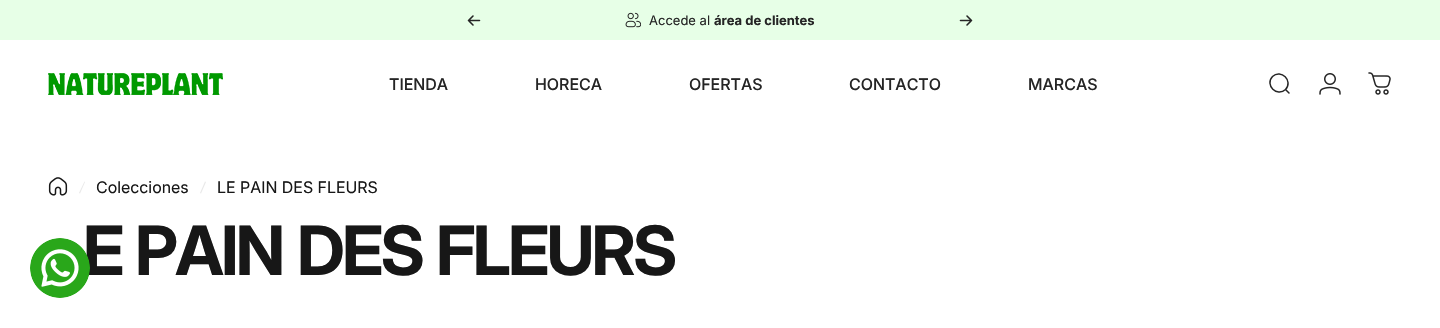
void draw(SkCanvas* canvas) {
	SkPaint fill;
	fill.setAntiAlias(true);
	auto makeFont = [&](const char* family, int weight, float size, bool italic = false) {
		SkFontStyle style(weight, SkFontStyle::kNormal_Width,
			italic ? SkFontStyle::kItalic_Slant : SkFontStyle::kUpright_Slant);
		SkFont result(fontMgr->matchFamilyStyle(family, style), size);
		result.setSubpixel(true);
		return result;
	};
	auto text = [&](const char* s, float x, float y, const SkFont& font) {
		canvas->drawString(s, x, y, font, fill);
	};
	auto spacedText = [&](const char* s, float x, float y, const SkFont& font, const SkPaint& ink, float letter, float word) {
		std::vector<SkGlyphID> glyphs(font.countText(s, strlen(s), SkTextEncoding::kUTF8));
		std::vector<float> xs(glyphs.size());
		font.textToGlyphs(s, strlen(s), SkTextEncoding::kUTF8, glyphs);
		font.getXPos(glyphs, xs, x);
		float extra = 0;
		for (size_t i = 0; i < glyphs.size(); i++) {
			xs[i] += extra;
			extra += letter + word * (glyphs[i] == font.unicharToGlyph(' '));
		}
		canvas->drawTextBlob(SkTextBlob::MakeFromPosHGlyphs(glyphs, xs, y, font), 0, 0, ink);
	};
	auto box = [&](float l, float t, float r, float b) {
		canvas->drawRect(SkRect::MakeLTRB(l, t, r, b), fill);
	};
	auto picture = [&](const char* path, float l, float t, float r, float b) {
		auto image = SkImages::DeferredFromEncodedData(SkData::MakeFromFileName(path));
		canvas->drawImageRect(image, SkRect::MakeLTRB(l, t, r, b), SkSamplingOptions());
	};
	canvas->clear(0xFFFFFFFF);
	fill.setColor(0xFFE7FFE7);
	box(0, 0, 1440, 40);
	fill.setStyle(SkPaint::kStroke_Style);
	fill.setStrokeWidth(1.6f);
	fill.setStrokeCap(SkPaint::kRound_Cap);
	fill.setStrokeJoin(SkPaint::kRound_Join);
	fill.setColor(0xFF252525);
	canvas->drawPath(SkPathBuilder().moveTo(473, 16).lineTo(468.5f, 20.5f).moveTo(468.5f, 20.5f).lineTo(473, 25).moveTo(468.5f, 20.5f).lineTo(479.5f, 20.5f).detach(), fill);
	picture("image0.png", 625, 12, 641, 28);
	canvas->drawPath(SkPathBuilder().moveTo(960.5f, 20.5f).lineTo(971.5f, 20.5f).moveTo(971.5f, 20.5f).lineTo(967, 16).moveTo(971.5f, 20.5f).lineTo(967, 25).detach(), fill);
	picture("image1.png", 48, 73, 223, 95);
	fill.setStrokeWidth(1.5f);
	fill.setStrokeJoin(SkPaint::kMiter_Join);
	canvas->drawPath(SkPathBuilder().moveTo(1289, 93).lineTo(1285.5f, 89.5f).moveTo(1285.5f, 89.5f).cubicTo(1293.5f, 81, 1281, 68.5f, 1272.5f, 76.5f).cubicTo(1264.5f, 85, 1277, 97.5f, 1285.5f, 89.5f).close().detach(), fill);
	picture("image2.png", 1319, 73, 1341, 95);
	picture("image3.png", 1368, 72, 1391, 95);
	picture("image5.png", 48, 177, 68, 196);
	fill.setStyle(SkPaint::kFill_Style);
	fill.setColor(0xFFE8E8E8);
	canvas->drawPath(SkPathBuilder().moveTo(84.5f, 181.5f).lineTo(85, 182).lineTo(80, 193.5f).lineTo(79, 193).close().detach(), fill);
	canvas->drawPath(SkPathBuilder().moveTo(205, 181.5f).lineTo(206, 182).lineTo(201, 193.5f).lineTo(200, 193).close().detach(), fill);
	auto font1 = makeFont("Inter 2", 400, 13);
	fill.setColor(0xFF252525);
	text("Accede al", 649, 25, font1);
	auto font2 = makeFont("Inter 2", 700, 13);
	text("área de clientes", 714, 25, font2);
	auto font3 = makeFont("Inter", 500, 16);
	text("TIENDA", 389, 90, font3);
	text("HORECA", 535, 90, font3);
	text("OFERTAS", 689, 90, font3);
	text("CONTACTO", 849, 90, font3);
	text("MARCAS", 1028, 90, font3);
	auto font4 = makeFont("Inter", 400, 16);
	fill.setColor(0xFF171717);
	text("Colecciones", 96, 193, font4);
	text("LE PAIN DES FLEURS", 217, 193, font4);
	auto font5 = makeFont("Inter", 700, 68);
	spacedText("E", 83, 275, font5, fill, -2.75f, 0);
	picture("image4.png", 30, 238, 90, 298);
	spacedText("PAIN", 135, 275, font5, fill, -2.75f, 0);
	spacedText("DES", 297, 275, font5, fill, -2.75f, 0);
	spacedText("FLEURS", 436, 275, font5, fill, -2.75f, 0);
}
